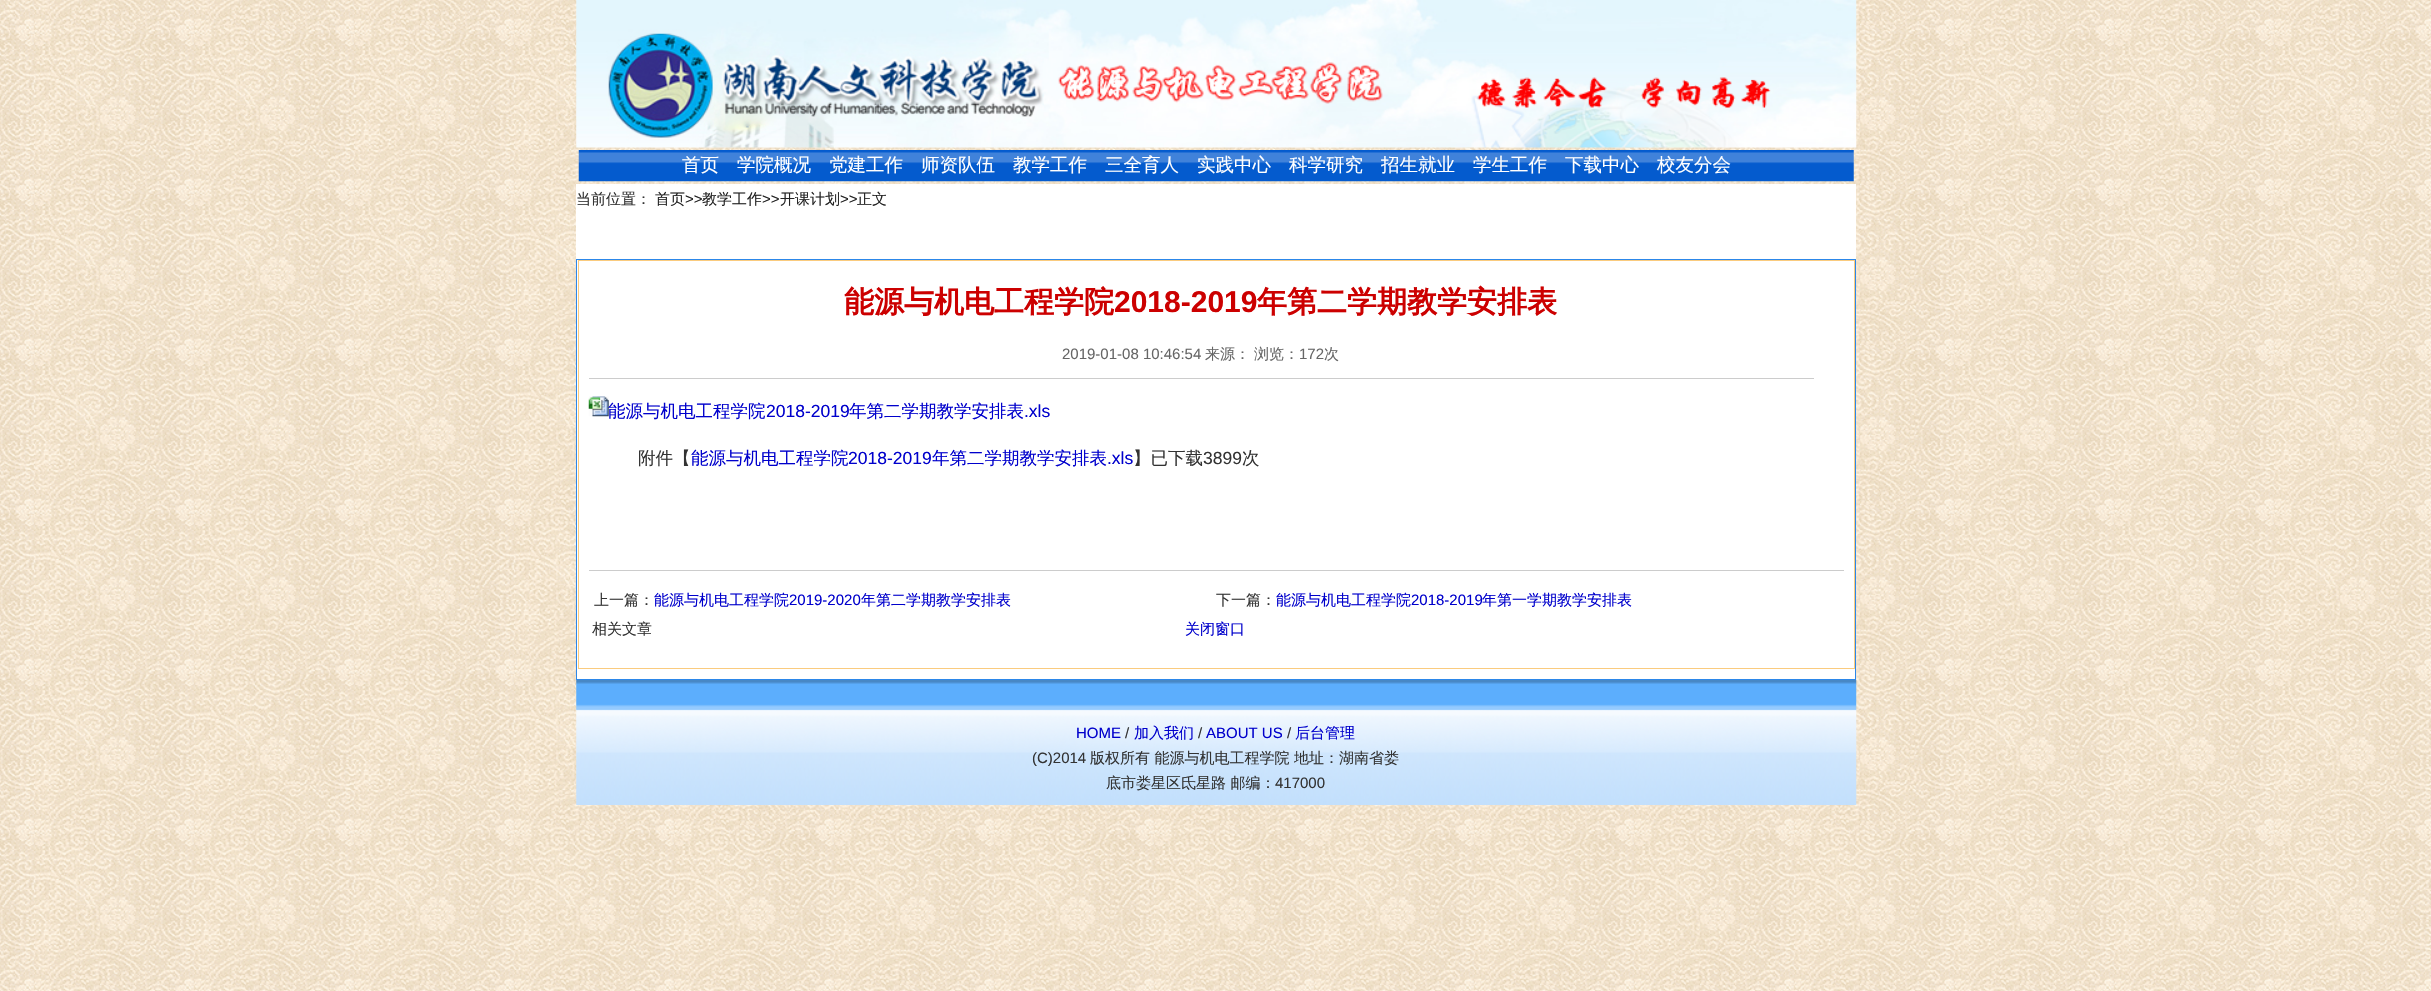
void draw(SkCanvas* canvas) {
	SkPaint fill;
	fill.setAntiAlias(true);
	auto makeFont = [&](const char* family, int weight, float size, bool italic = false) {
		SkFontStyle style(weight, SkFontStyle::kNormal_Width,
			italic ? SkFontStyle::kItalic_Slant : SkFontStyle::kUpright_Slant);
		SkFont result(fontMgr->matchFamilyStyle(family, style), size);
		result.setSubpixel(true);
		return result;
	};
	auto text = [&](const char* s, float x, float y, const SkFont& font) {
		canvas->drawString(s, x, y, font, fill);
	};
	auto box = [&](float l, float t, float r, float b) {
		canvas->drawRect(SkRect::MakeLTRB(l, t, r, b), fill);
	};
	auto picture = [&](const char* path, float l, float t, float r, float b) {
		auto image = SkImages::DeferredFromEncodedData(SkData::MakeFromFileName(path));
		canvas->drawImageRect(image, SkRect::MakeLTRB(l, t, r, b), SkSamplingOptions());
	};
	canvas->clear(0xFFFFFFFF);
	picture("image0.png", 0, 0, 2431, 991);
	picture("image1.png", 576, 0, 1857, 148);
	picture("image2.png", 578, 150, 1854, 182);
	fill.setColor(0xFFFFFFFF);
	box(576, 184, 1856, 679);
	fill.setStyle(SkPaint::kStroke_Style);
	fill.setStrokeWidth(1);
	fill.setColor(0xFF2C87E9);
	canvas->drawRect(SkRect::MakeLTRB(576.5f, 259.5f, 1855.5f, 679.5f), fill);
	fill.setColor(0xFFFACB7E);
	canvas->drawRect(SkRect::MakeLTRB(578.5f, 260.5f, 1854.5f, 668.5f), fill);
	fill.setStyle(SkPaint::kFill_Style);
	fill.setColor(0xFFCCCCCC);
	box(589, 378, 1814, 379);
	picture("image3.png", 588, 396, 609, 417);
	box(589, 570, 1844, 571);
	picture("image4.png", 576, 680, 1857, 805);
	auto font1 = makeFont("WenQuanYi Zen Hei", 500, 18.5f);
	fill.setColor(0xFFFFFFFF);
	text("首页", 682, 171, font1);
	text("学院概况", 737, 171, font1);
	text("党建工作", 829, 171, font1);
	text("师资队伍", 921, 171, font1);
	text("教学工作", 1013, 171, font1);
	text("三全育人", 1105, 171, font1);
	text("实践中心", 1197, 171, font1);
	text("科学研究", 1289, 171, font1);
	text("招生就业", 1381, 171, font1);
	text("学生工作", 1473, 171, font1);
	text("下载中心", 1565, 171, font1);
	text("校友分会", 1657, 171, font1);
	auto font2 = makeFont("WenQuanYi Zen Hei", 500, 15);
	fill.setColor(0xFF333333);
	text("当前位置：", 576, 204, font2);
	fill.setColor(0xFF222222);
	text("首页", 655, 204, font2);
	auto font3 = makeFont("Liberation Sans", 400, 15);
	text(">>", 685, 204, font3);
	text("教学工作", 702, 204, font2);
	text(">>", 762, 204, font3);
	text("开课计划", 780, 204, font2);
	text(">>", 840, 204, font3);
	text("正文", 857, 204, font2);
	auto font4 = makeFont("WenQuanYi Zen Hei", 700, 30);
	fill.setColor(0xFFCC0000);
	text("能源与机电工程学院", 844, 312, font4);
	auto font5 = makeFont("Liberation Sans", 700, 30);
	text("2018-2019", 1114, 312, font5);
	text("年第二学期教学安排表", 1257, 312, font4);
	fill.setColor(0xFF666666);
	text("2019-01-08 10:46:54", 1062, 359, font3);
	text("来源：", 1205, 359, font2);
	text("浏览：", 1254, 359, font2);
	text("172", 1299, 359, font3);
	text("次", 1324, 359, font2);
	auto font6 = makeFont("WenQuanYi Zen Hei", 500, 17.5f);
	fill.setColor(0xFF0000CC);
	text("能源与机电工程学院", 608, 417, font6);
	auto font7 = makeFont("Liberation Sans", 400, 17.5f);
	text("2018-2019", 766, 417, font7);
	text("年第二学期教学安排表", 849, 417, font6);
	text(".xls", 1024, 417, font7);
	fill.setColor(0xFF333333);
	text("附件【", 638, 464, font6);
	fill.setColor(0xFF0000CC);
	text("能源与机电工程学院", 691, 464, font6);
	text("2018-2019", 848, 464, font7);
	text("年第二学期教学安排表", 932, 464, font6);
	text(".xls", 1107, 464, font7);
	fill.setColor(0xFF333333);
	text("】已下载", 1133, 464, font6);
	text("3899", 1203, 464, font7);
	text("次", 1242, 464, font6);
	text("上一篇：", 594, 605, font2);
	fill.setColor(0xFF0000CC);
	text("能源与机电工程学院", 654, 605, font2);
	text("2019-2020", 789, 605, font3);
	text("年第二学期教学安排表", 861, 605, font2);
	fill.setColor(0xFF333333);
	text("下一篇：", 1216, 605, font2);
	fill.setColor(0xFF0000CC);
	text("能源与机电工程学院", 1276, 605, font2);
	text("2018-2019", 1411, 605, font3);
	text("年第一学期教学安排表", 1482, 605, font2);
	fill.setColor(0xFF333333);
	text("相关文章", 592, 634, font2);
	fill.setColor(0xFF0000CC);
	text("关闭窗口", 1185, 634, font2);
	text("HOME", 1076, 738, font3);
	fill.setColor(0xFF333333);
	text("/", 1125, 738, font3);
	fill.setColor(0xFF0000CC);
	text("加入我们", 1134, 738, font2);
	fill.setColor(0xFF333333);
	text("/", 1198, 738, font3);
	fill.setColor(0xFF0000CC);
	text("ABOUT US", 1206, 738, font3);
	fill.setColor(0xFF333333);
	text("/", 1287, 738, font3);
	fill.setColor(0xFF0000CC);
	text("后台管理", 1295, 738, font2);
	fill.setColor(0xFF333333);
	text("(C)2014", 1032, 763, font3);
	text("版权所有 能源与机电工程学院 地址：湖南省娄", 1090, 763, font2);
	text("底市娄星区氐星路 邮编：", 1106, 788, font2);
	text("417000", 1275, 788, font3);
}
